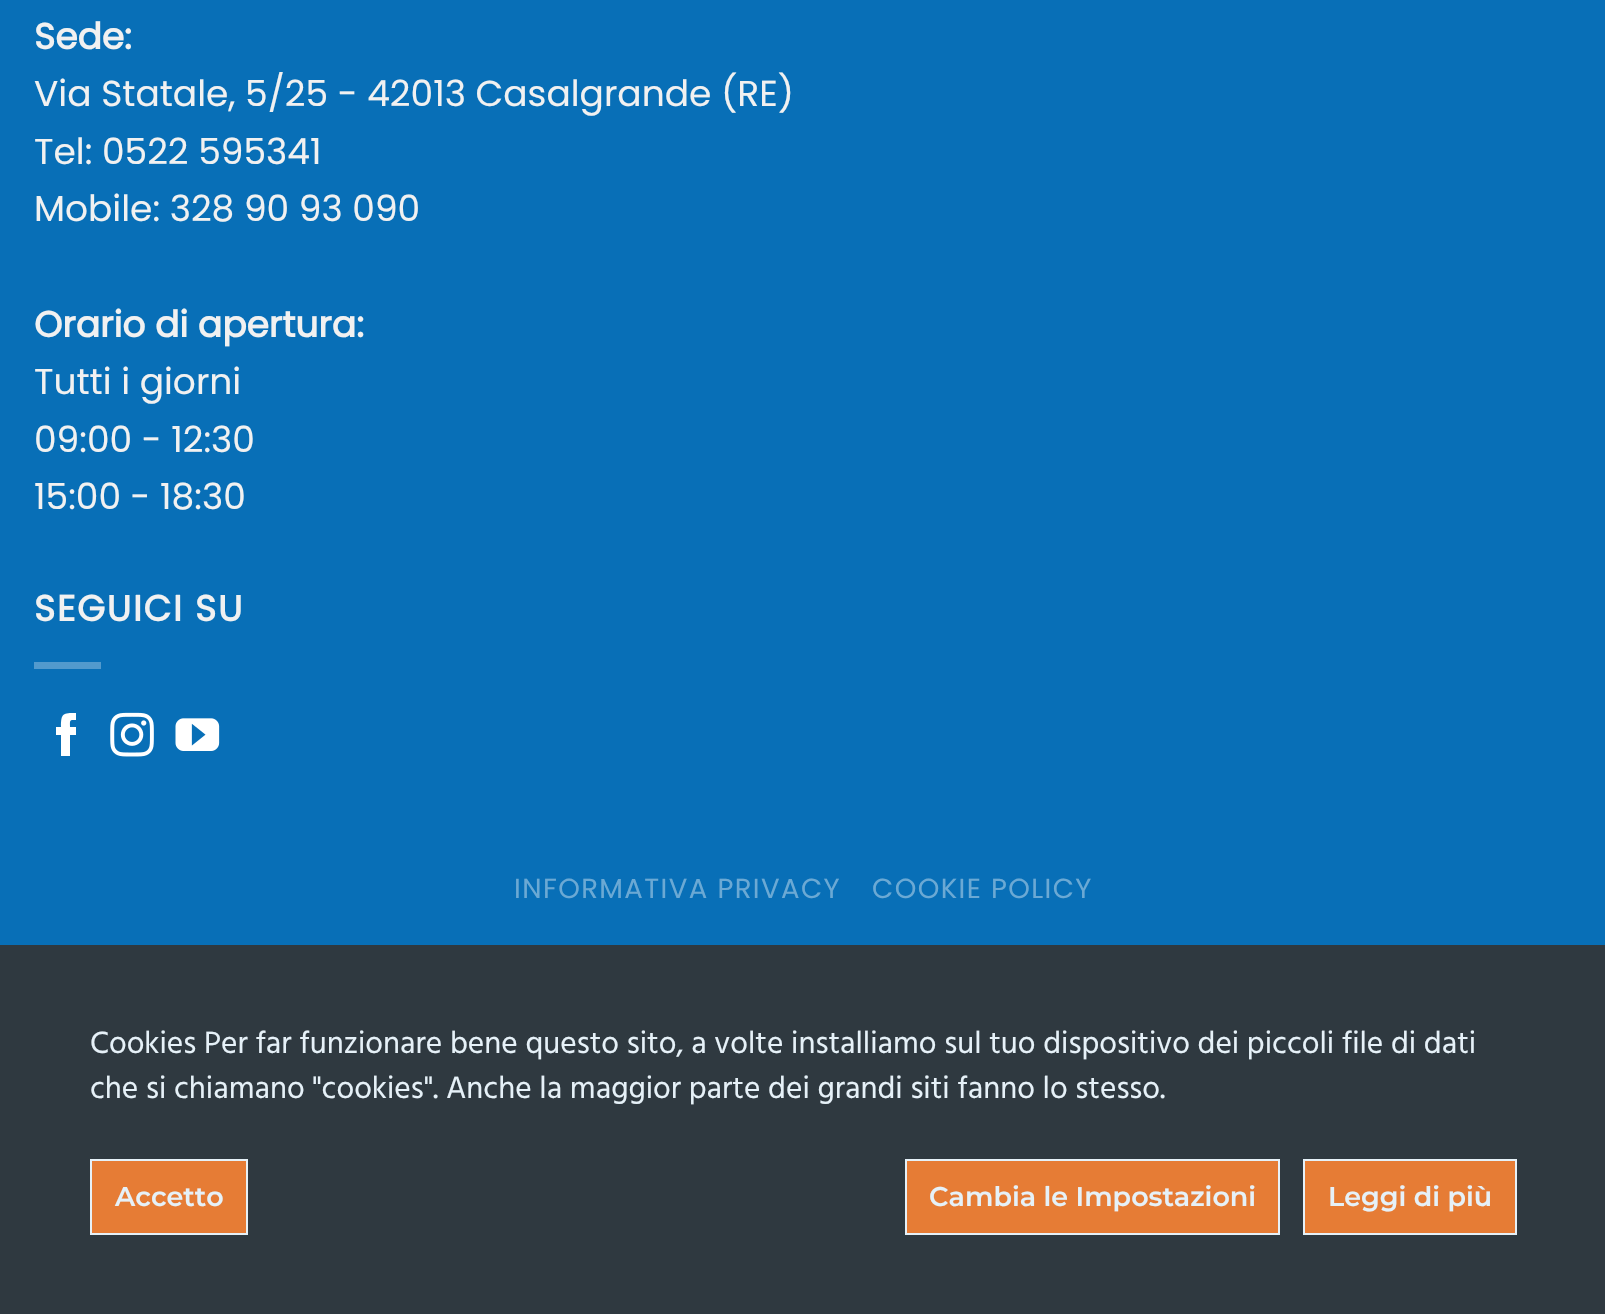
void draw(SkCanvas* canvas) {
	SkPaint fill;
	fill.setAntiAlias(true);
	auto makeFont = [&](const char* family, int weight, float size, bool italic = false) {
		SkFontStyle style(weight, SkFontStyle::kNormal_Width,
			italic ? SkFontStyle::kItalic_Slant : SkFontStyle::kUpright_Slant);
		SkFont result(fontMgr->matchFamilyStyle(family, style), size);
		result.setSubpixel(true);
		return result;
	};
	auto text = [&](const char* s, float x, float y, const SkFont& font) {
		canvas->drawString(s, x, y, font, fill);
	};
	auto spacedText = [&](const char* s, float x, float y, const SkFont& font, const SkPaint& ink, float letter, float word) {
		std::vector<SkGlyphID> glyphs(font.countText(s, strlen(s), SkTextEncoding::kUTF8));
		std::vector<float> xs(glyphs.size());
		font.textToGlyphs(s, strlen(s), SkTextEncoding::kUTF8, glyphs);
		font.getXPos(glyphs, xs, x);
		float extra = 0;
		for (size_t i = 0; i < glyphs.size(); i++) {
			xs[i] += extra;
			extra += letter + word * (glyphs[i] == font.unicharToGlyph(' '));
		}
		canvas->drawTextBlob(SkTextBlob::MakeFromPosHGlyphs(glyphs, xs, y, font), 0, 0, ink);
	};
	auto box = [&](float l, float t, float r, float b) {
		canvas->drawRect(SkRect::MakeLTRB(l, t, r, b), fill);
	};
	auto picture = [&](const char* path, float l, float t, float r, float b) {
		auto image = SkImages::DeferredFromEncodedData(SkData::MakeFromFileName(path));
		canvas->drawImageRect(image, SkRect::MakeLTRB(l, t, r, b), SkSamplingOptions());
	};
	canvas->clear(0xFF086FB7);
	fill.setColor(0xFF529ACD);
	box(34, 662, 101, 669);
	fill.setColor(0xFFFFFFFF);
	canvas->drawPath(SkPathBuilder().moveTo(70, 756).lineTo(61, 756).lineTo(61, 735).lineTo(56, 735).lineTo(56, 727).lineTo(61, 727).cubicTo(61, 713, 63, 713, 76, 713).lineTo(76, 720).cubicTo(69, 720, 70, 720, 70, 727).lineTo(76, 727).lineTo(76, 735).lineTo(70, 735).close().detach(), fill);
	picture("image0.png", 110, 712, 154, 757);
	picture("image1.png", 175, 718, 220, 751);
	fill.setColor(0xE6333333);
	box(0, 945, 1605, 1314);
	fill.setColor(0xFFE67C35);
	canvas->drawRect(SkRect::MakeLTRB(91, 1160, 247, 1234), fill);
	fill.setStyle(SkPaint::kStroke_Style);
	fill.setStrokeWidth(2);
	fill.setColor(0xFFE6F1F8);
	canvas->drawRect(SkRect::MakeLTRB(91, 1160, 247, 1234), fill);
	fill.setStyle(SkPaint::kFill_Style);
	fill.setColor(0xFFE67C35);
	canvas->drawRect(SkRect::MakeLTRB(906, 1160, 1279, 1234), fill);
	fill.setStyle(SkPaint::kStroke_Style);
	fill.setColor(0xFFE6F1F8);
	canvas->drawRect(SkRect::MakeLTRB(906, 1160, 1279, 1234), fill);
	fill.setStyle(SkPaint::kFill_Style);
	fill.setColor(0xFFE67C35);
	canvas->drawRect(SkRect::MakeLTRB(1304, 1160, 1516, 1234), fill);
	fill.setStyle(SkPaint::kStroke_Style);
	fill.setColor(0xFFE6F1F8);
	canvas->drawRect(SkRect::MakeLTRB(1304, 1160, 1516, 1234), fill);
	auto font1 = makeFont("Poppins", 700, 36);
	fill.setStyle(SkPaint::kFill_Style);
	fill.setColor(0xFFF1F1F1);
	text("Sede:", 34, 49, font1);
	auto font2 = makeFont("Poppins", 400, 36);
	text("Via Statale, 5/25 - 42013 Casalgrande (RE)", 34, 106, font2);
	text("Tel: 0522 595341", 34, 164, font2);
	text("Mobile: 328 90 93 090", 34, 221, font2);
	text("Orario di apertura:", 34, 337, font1);
	text("Tutti i giorni", 34, 394, font2);
	text("09:00 - 12:30", 34, 452, font2);
	text("15:00 - 18:30", 34, 509, font2);
	spacedText("SEGUICI SU", 34, 621, font1, fill, 1.75f, 0);
	auto font3 = makeFont("Poppins", 400, 27.5f);
	fill.setColor(0xFF6BA9D4);
	spacedText("INFORMATIVA PRIVACY", 514, 898, font3, fill, 1.4f, 0);
	spacedText("COOKIE POLICY", 872, 898, font3, fill, 1.4f, 0);
	auto font4 = makeFont("Hind", 400, 31.5f);
	fill.setColor(0xFFE6F1F8);
	text("Cookies Per far funzionare bene questo sito, a volte installiamo sul tuo dispositivo dei piccoli file di dati", 90, 1053, font4);
	text("che si chiamano \"cookies\". Anche la maggior parte dei grandi siti fanno lo stesso.", 90, 1098, font4);
	auto font5 = makeFont("Montserrat", 600, 27);
	text("Accetto", 115, 1206, font5);
	text("Cambia le Impostazioni", 929, 1206, font5);
	text("Leggi di più", 1328, 1206, font5);
}
